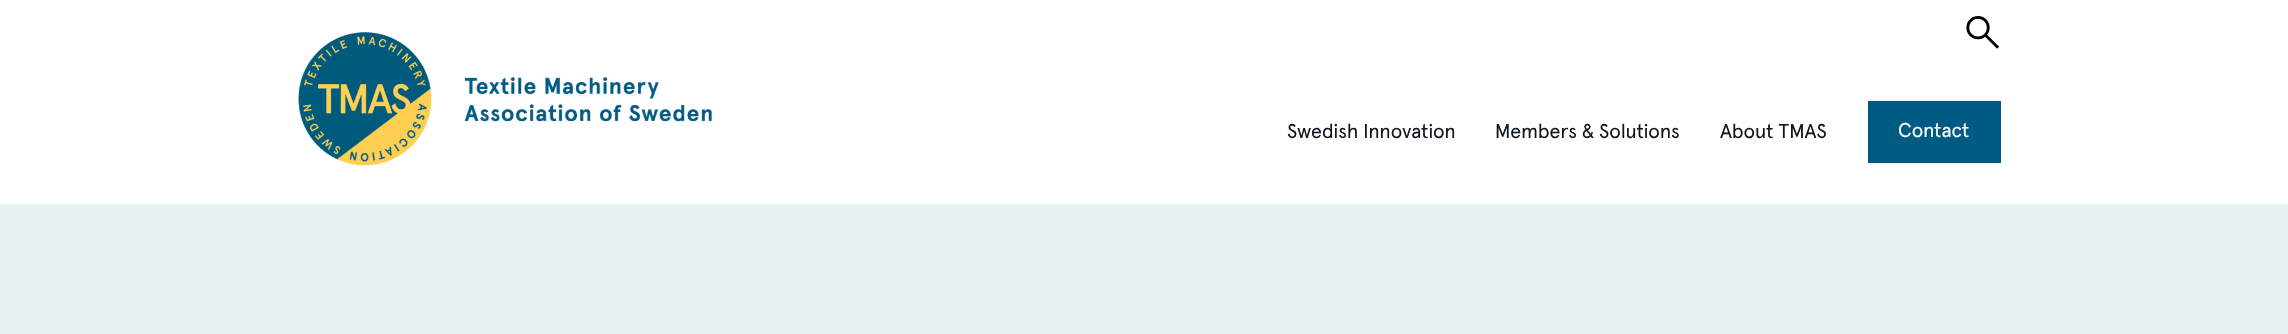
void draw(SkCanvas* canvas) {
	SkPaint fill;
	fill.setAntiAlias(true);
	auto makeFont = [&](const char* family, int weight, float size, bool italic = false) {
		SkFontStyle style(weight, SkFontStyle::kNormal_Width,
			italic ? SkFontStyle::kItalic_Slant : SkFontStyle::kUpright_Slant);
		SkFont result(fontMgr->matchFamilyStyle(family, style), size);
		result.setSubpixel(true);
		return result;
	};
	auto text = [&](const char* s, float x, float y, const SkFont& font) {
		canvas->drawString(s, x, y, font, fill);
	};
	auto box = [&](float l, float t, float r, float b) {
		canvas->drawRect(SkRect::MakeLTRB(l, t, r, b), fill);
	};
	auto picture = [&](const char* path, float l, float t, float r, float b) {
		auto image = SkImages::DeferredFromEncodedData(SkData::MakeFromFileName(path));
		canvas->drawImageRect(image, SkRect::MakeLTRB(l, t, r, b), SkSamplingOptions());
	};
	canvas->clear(0xFFE6F0EF);
	fill.setColor(0xFFFFFFFF);
	box(0, 0, 2288, 204);
	picture("image0.png", 1966, 16, 1999, 49);
	picture("image1.png", 298, 32, 713, 166);
	fill.setColor(0xFF005B82);
	box(1868, 101, 2001, 163);
	auto font1 = makeFont("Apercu", 400, 20);
	fill.setColor(0xFF101820);
	text("Swedish Innovation", 1287, 138, font1);
	text("Members & Solutions", 1495, 138, font1);
	text("About TMAS", 1720, 138, font1);
	fill.setColor(0xFFFFFFFF);
	text("Contact", 1898, 137, font1);
}
